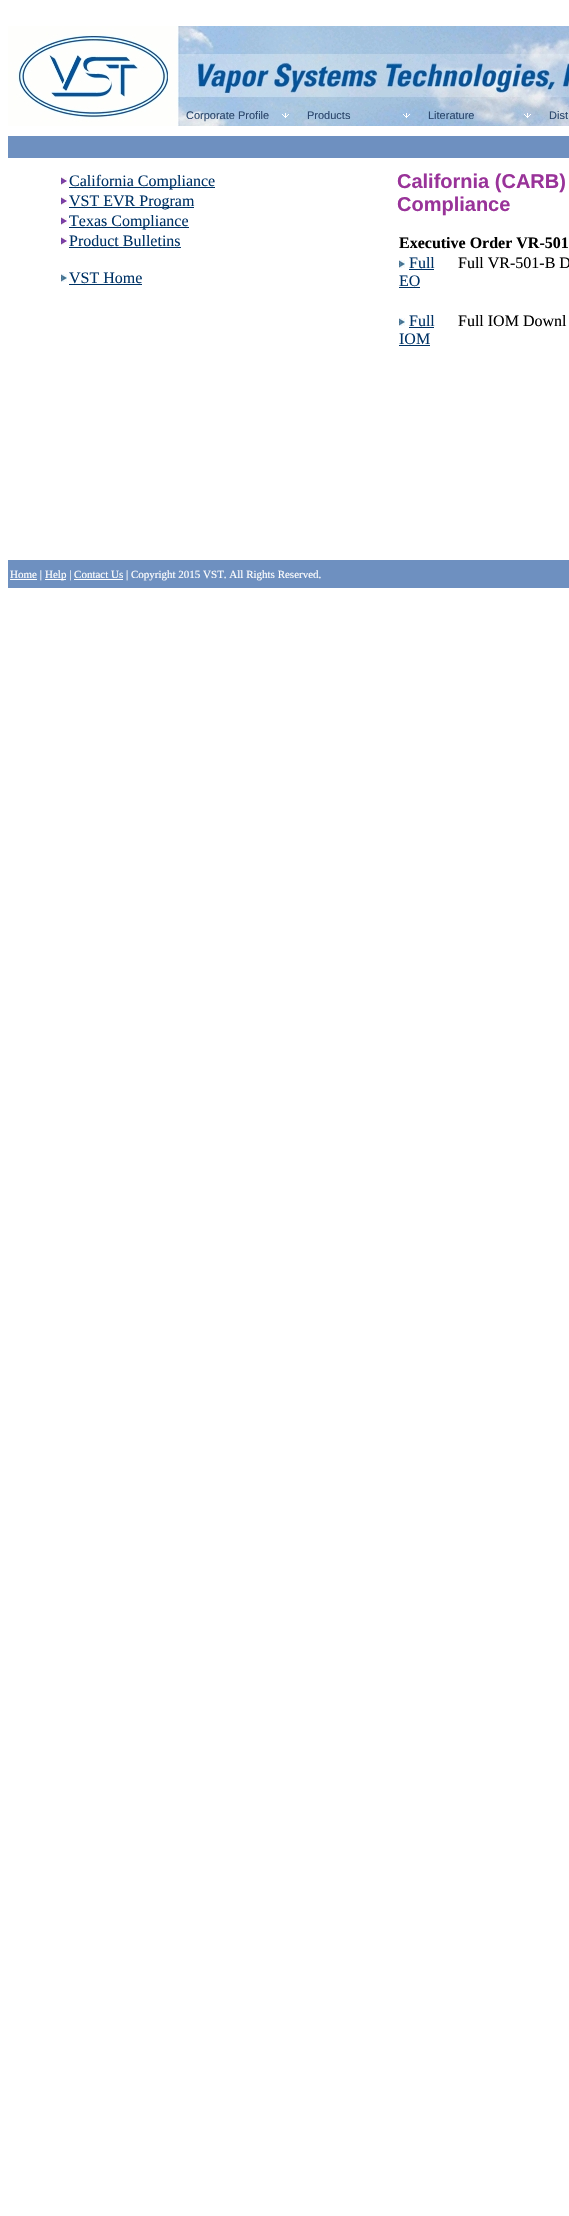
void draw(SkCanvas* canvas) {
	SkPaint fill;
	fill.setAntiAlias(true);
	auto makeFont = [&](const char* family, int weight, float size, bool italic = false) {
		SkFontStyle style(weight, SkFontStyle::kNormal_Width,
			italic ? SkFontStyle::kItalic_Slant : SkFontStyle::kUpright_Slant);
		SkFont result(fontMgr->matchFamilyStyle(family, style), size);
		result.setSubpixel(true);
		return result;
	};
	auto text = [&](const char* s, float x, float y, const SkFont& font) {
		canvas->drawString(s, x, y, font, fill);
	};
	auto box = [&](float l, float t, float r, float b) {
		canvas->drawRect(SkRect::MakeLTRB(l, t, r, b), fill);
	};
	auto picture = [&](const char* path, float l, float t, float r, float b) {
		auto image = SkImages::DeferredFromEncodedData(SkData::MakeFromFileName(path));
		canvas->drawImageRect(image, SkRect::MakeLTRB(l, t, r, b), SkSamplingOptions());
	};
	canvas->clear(0xFFFFFFFF);
	picture("image0.png", 8, 26, 569, 126);
	picture("image1.png", 282, 113, 289, 118);
	picture("image2.png", 403, 113, 410, 118);
	picture("image3.png", 524, 113, 531, 118);
	fill.setColor(0xFF6E90C0);
	box(8, 136, 569, 158);
	picture("image4.png", 61, 177, 67, 185);
	fill.setColor(0xFF003366);
	box(69, 187, 215, 188);
	picture("image4.png", 61, 197, 67, 205);
	box(69, 207, 194, 208);
	picture("image4.png", 61, 217, 67, 225);
	box(69, 227, 189, 228);
	picture("image4.png", 61, 237, 67, 245);
	box(69, 247, 181, 248);
	picture("image5.png", 61, 274, 67, 282);
	box(69, 284, 142, 285);
	picture("image5.png", 399, 260, 405, 268);
	box(409, 269, 434, 270);
	box(399, 287, 420, 288);
	picture("image5.png", 399, 318, 405, 326);
	box(409, 327, 434, 328);
	box(399, 345, 430, 346);
	fill.setColor(0xFF6E90C0);
	box(8, 560, 569, 588);
	fill.setColor(0xFFFFFFFF);
	box(10, 579, 37, 580);
	box(45, 579, 66, 580);
	box(74, 579, 123, 580);
	auto font1 = makeFont("Liberation Sans", 400, 11);
	fill.setColor(0xFF2A466B);
	text("Corporate Profile", 186, 119, font1);
	text("Products", 307, 119, font1);
	text("Literature", 428, 119, font1);
	text("Dist", 549, 119, font1);
	auto font2 = makeFont("Liberation Serif", 400, 16);
	fill.setColor(0xFF003366);
	text("California Compliance", 69, 186, font2);
	text("VST EVR Program", 69, 206, font2);
	text("Texas Compliance", 69, 226, font2);
	text("Product Bulletins", 69, 246, font2);
	text("VST Home", 69, 283, font2);
	auto font3 = makeFont("Liberation Sans", 700, 20);
	fill.setColor(0xFF993399);
	text("California (CARB)", 397, 188, font3);
	text("Compliance", 397, 211, font3);
	auto font4 = makeFont("Liberation Serif", 700, 16);
	fill.setColor(0xFF000000);
	text("Executive Order VR-501", 399, 248, font4);
	fill.setColor(0xFF003366);
	text("Full", 409, 268, font2);
	text("EO", 399, 286, font2);
	fill.setColor(0xFF000000);
	text("Full VR-501-B D", 458, 268, font2);
	fill.setColor(0xFF003366);
	text("Full", 409, 326, font2);
	text("IOM", 399, 344, font2);
	fill.setColor(0xFF000000);
	text("Full IOM Downl", 458, 326, font2);
	auto font5 = makeFont("Liberation Serif", 400, 11);
	fill.setColor(0xFFFFFFFF);
	text("Home |", 10, 578, font5);
	text("Help | Contact Us | Copyright 2015 VST. All Rights Reserved.", 45, 578, font5);
}
